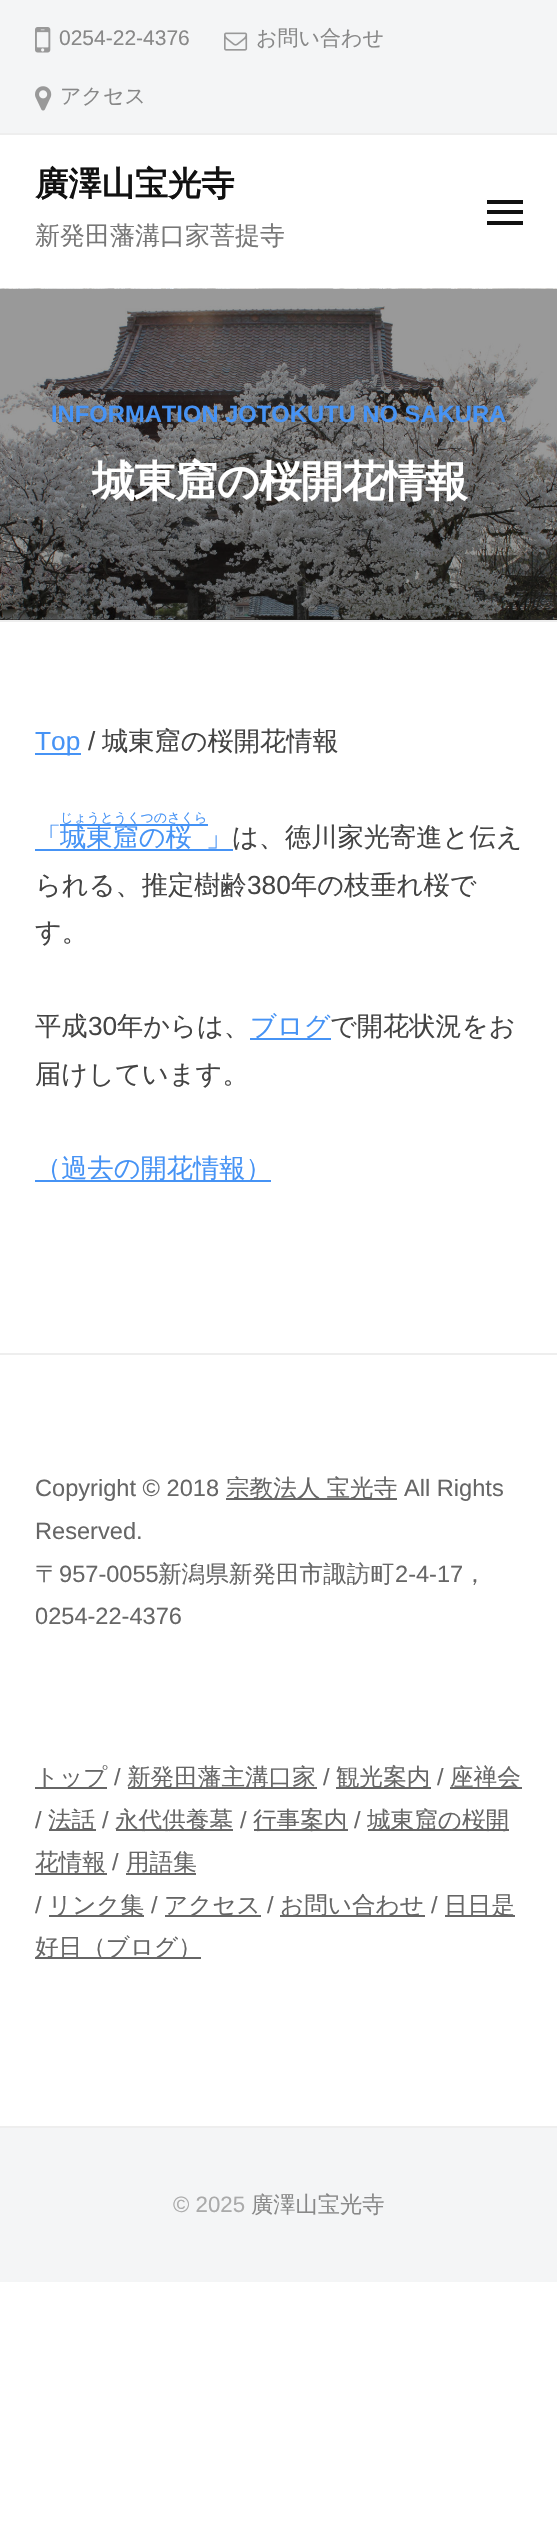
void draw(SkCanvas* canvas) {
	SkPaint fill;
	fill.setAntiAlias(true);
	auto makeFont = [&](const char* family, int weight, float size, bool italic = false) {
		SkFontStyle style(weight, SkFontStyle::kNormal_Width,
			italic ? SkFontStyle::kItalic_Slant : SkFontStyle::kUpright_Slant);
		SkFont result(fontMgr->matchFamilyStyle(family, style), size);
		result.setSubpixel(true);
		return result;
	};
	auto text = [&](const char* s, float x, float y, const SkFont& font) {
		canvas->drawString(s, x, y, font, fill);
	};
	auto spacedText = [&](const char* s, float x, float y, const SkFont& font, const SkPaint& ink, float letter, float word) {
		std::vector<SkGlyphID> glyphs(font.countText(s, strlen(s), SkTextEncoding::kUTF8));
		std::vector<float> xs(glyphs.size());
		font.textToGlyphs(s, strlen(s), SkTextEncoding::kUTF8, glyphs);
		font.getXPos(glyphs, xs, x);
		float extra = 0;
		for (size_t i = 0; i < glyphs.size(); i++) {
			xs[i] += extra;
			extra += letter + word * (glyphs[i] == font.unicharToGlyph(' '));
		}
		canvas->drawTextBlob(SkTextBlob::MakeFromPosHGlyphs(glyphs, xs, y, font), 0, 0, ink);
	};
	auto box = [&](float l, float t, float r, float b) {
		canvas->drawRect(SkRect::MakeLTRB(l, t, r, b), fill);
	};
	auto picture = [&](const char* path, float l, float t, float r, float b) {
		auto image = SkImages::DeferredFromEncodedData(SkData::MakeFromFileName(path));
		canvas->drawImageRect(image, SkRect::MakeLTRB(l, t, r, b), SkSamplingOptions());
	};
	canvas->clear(0xFFFFFFFF);
	fill.setColor(0xFFEEEEEE);
	box(0, 620, 557, 622);
	fill.setColor(0xFFF4F5F6);
	box(0, 0, 557, 133);
	fill.setColor(0xFFEEEEEE);
	box(0, 133, 557, 135);
	picture("image0.png", 35, 27, 51, 53);
	picture("image1.png", 224, 32, 248, 51);
	picture("image2.png", 35, 86, 52, 111);
	fill.setColor(0xFF111111);
	box(487, 210, 523, 214);
	box(487, 200, 523, 204);
	box(487, 221, 523, 225);
	fill.setColor(0xFF1F1F1F);
	box(0, 619, 557, 620);
	picture("image3.png", 0, 288, 557, 620);
	fill.setColor(0xFF4693F5);
	box(35, 753, 81, 755);
	box(35, 849, 233, 851);
	box(60, 824, 208, 826);
	box(250, 1038, 331, 1040);
	box(35, 1180, 271, 1182);
	fill.setColor(0xFFEEEEEE);
	box(0, 1353, 557, 1355);
	fill.setColor(0xFF666666);
	box(226, 1498, 397, 1500);
	box(35, 1787, 107, 1789);
	box(128, 1787, 317, 1789);
	box(336, 1787, 431, 1789);
	box(450, 1787, 522, 1789);
	box(49, 1829, 96, 1831);
	box(116, 1829, 233, 1831);
	box(254, 1829, 348, 1831);
	box(368, 1829, 509, 1831);
	box(35, 1873, 107, 1875);
	box(126, 1873, 196, 1875);
	box(49, 1915, 144, 1917);
	box(165, 1915, 261, 1917);
	box(280, 1915, 425, 1917);
	box(445, 1915, 515, 1917);
	box(35, 1957, 201, 1959);
	fill.setColor(0xFFF4F5F6);
	box(0, 2128, 557, 2282);
	fill.setColor(0xFFEEEEEE);
	box(0, 2126, 557, 2128);
	auto font1 = makeFont("Liberation Sans", 400, 21);
	fill.setColor(0xFF888888);
	text("0254-22-4376", 59, 45, font1);
	auto font2 = makeFont("WenQuanYi Zen Hei", 500, 21);
	text("お問い合わせ", 256, 45, font2);
	text("アクセス", 60, 103, font2);
	auto font3 = makeFont("WenQuanYi Zen Hei", 700, 33.25f);
	fill.setColor(0xFF111111);
	text("廣澤山宝光寺", 35, 195, font3);
	auto font4 = makeFont("WenQuanYi Zen Hei", 500, 25);
	fill.setColor(0xFF777777);
	text("新発田藩溝口家菩提寺", 35, 244, font4);
	auto font5 = makeFont("Liberation Sans", 700, 23.75f);
	fill.setColor(0xFF4693F5);
	text("INFORMATION JOTOKUTU NO SAKURA", 51, 422, font5);
	auto font6 = makeFont("WenQuanYi Zen Hei", 700, 42.75f);
	fill.setColor(0xFFFFFFFF);
	spacedText("城東窟の桜開花情報", 92, 496, font6, fill, -1.25f, 0);
	auto font7 = makeFont("Liberation Sans", 400, 26.25f);
	fill.setColor(0xFF4693F5);
	text("Top", 35, 750, font7);
	fill.setColor(0xFF444444);
	text("/", 88, 750, font7);
	auto font8 = makeFont("WenQuanYi Zen Hei", 500, 26.25f);
	text("城東窟の桜開花情報", 102, 750, font8);
	fill.setColor(0xFF4693F5);
	text("「", 35, 846, font8);
	auto font9 = makeFont("WenQuanYi Zen Hei", 500, 13.1f);
	text("じょうとうくつのさくら", 60, 822, font9);
	text("城東窟の桜", 60, 846, font8);
	text("」", 206, 846, font8);
	fill.setColor(0xFF444444);
	text("は、徳川家光寄進と伝え", 232, 846, font8);
	text("られる、推定樹齢", 35, 894, font8);
	text("380", 247, 894, font7);
	text("年の枝垂れ桜で", 291, 894, font8);
	text("す。", 35, 941, font8);
	text("平成", 35, 1035, font8);
	text("30", 88, 1035, font7);
	text("年からは、", 117, 1035, font8);
	fill.setColor(0xFF4693F5);
	text("ブログ", 250, 1035, font8);
	fill.setColor(0xFF444444);
	text("で開花状況をお", 330, 1035, font8);
	text("届けしています。", 35, 1083, font8);
	fill.setColor(0xFF4693F5);
	text("（過去の開花情報）", 35, 1177, font8);
	auto font10 = makeFont("Liberation Sans", 400, 23.6f);
	fill.setColor(0xFF666666);
	text("Copyright © 2018", 35, 1496, font10);
	auto font11 = makeFont("WenQuanYi Zen Hei", 500, 23.6f);
	spacedText("宗教法人 宝光寺", 226, 1496, font11, fill, 0, -1);
	text("All Rights", 404, 1496, font10);
	text("Reserved.", 35, 1539, font10);
	text("〒", 35, 1582, font11);
	text("957-0055", 59, 1582, font10);
	text("新潟県新発田市諏訪町", 158, 1582, font11);
	text("2-4-17", 395, 1582, font10);
	text("，", 463, 1582, font11);
	text("0254-22-4376", 35, 1624, font10);
	text("トップ", 35, 1785, font11);
	text("/", 114, 1785, font10);
	text("新発田藩主溝口家", 127, 1785, font11);
	text("/", 323, 1785, font10);
	text("観光案内", 336, 1785, font11);
	text("/", 437, 1785, font10);
	text("座禅会", 450, 1785, font11);
	text("/", 35, 1828, font10);
	text("法話", 48, 1828, font11);
	text("/", 102, 1828, font10);
	text("永代供養墓", 115, 1828, font11);
	text("/", 240, 1828, font10);
	text("行事案内", 253, 1828, font11);
	text("/", 354, 1828, font10);
	text("城東窟の桜開", 367, 1828, font11);
	text("花情報", 35, 1870, font11);
	text("/", 112, 1870, font10);
	text("用語集", 126, 1870, font11);
	text("/", 35, 1913, font10);
	text("リンク集", 48, 1913, font11);
	text("/", 151, 1913, font10);
	text("アクセス", 164, 1913, font11);
	text("/", 267, 1913, font10);
	text("お問い合わせ", 280, 1913, font11);
	text("/", 431, 1913, font10);
	text("日日是", 444, 1913, font11);
	text("好日（ブログ）", 35, 1955, font11);
	auto font12 = makeFont("Liberation Sans", 400, 22.25f);
	fill.setColor(0xFFAAAAAA);
	text("© 2025", 173, 2212, font12);
	auto font13 = makeFont("WenQuanYi Zen Hei", 500, 22.25f);
	fill.setColor(0xFF888888);
	text("廣澤山宝光寺", 251, 2212, font13);
}
